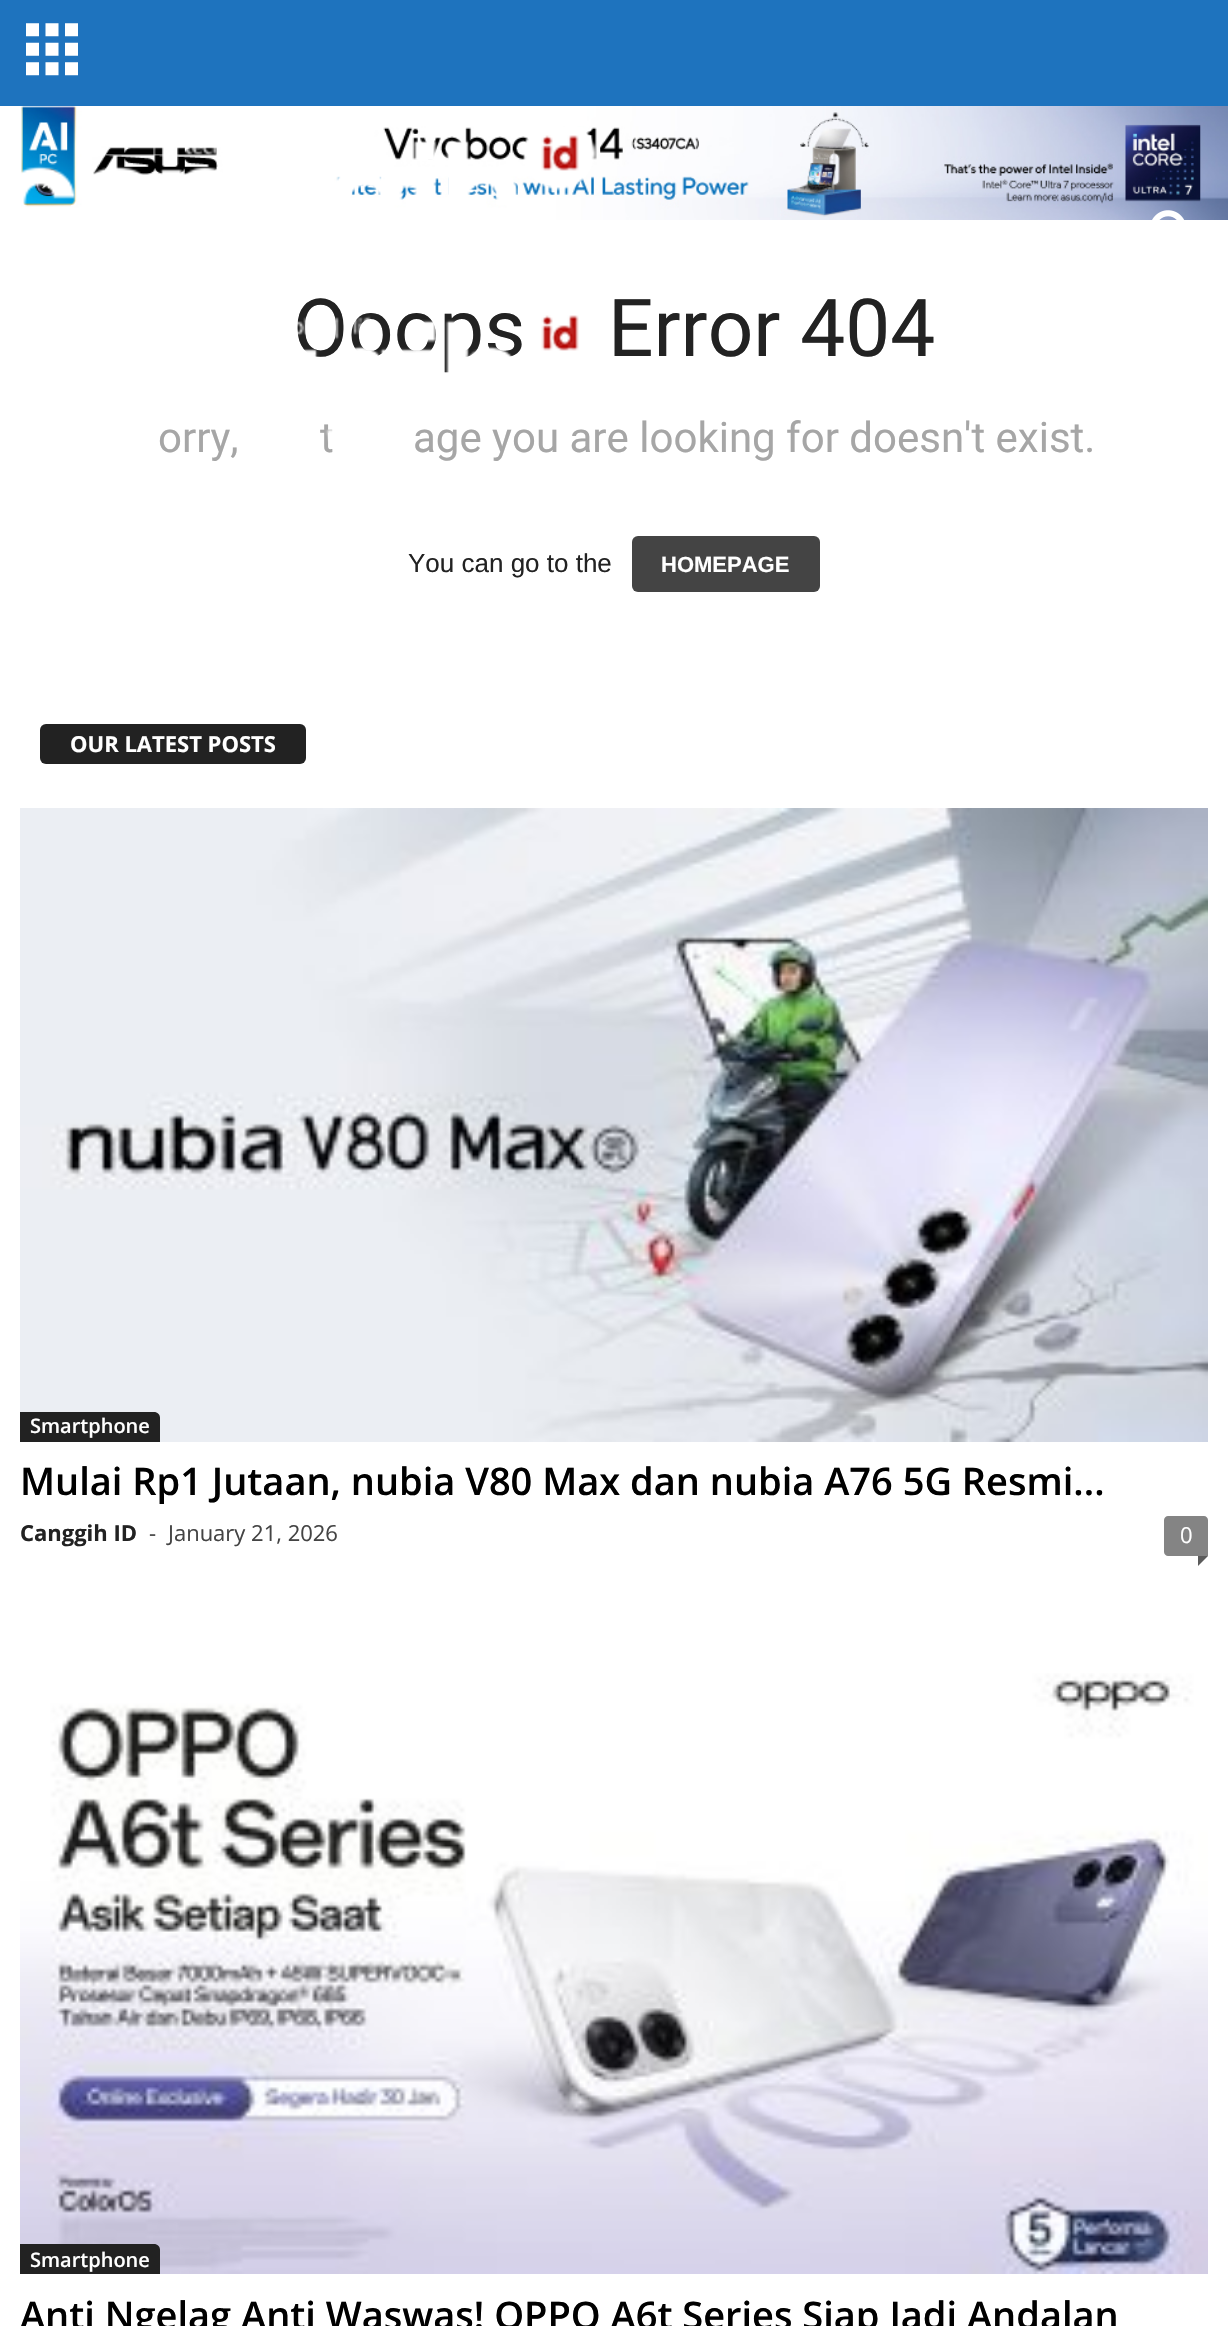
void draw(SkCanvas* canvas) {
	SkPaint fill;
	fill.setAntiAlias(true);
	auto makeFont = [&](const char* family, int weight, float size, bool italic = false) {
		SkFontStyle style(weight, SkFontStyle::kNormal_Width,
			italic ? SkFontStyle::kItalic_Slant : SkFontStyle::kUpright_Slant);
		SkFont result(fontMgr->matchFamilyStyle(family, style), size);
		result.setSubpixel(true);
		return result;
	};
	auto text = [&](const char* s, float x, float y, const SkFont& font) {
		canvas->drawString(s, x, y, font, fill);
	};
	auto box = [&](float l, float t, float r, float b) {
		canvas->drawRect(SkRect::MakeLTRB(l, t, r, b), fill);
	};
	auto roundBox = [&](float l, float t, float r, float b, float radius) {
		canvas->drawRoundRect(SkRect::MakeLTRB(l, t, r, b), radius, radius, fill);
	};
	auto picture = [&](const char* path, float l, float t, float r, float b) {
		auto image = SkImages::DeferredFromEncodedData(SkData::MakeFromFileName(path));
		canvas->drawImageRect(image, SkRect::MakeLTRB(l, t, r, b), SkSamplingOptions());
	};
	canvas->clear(0xFFFFFFFF);
	fill.setColor(0xFF1E73BE);
	box(0, 0, 1228, 106);
	picture("image0.png", 26, 23, 78, 76);
	picture("image4.png", 21, 106, 1228, 220);
	picture("image1.png", 21, 127, 597, 205);
	picture("image3.png", 1152, 210, 1185, 220);
	fill.setColor(0xFF444444);
	roundBox(632, 536, 820, 592, 6);
	fill.setColor(0xFF222222);
	roundBox(40, 724, 306, 764, 6);
	picture("image5.png", 20, 808, 1208, 1442);
	canvas->drawPath(SkPathBuilder().moveTo(20, 1412).lineTo(154, 1412).cubicTo(157.5f, 1412, 160, 1414.5f, 160, 1418).lineTo(160, 1442).lineTo(20, 1442).close().detach(), fill);
	fill.setColor(0xFF848484);
	canvas->drawPath(SkPathBuilder().moveTo(1168, 1516).lineTo(1204, 1516).cubicTo(1206, 1516, 1208, 1518, 1208, 1520).lineTo(1208, 1556).lineTo(1168, 1556).cubicTo(1166, 1556, 1164, 1554, 1164, 1552).lineTo(1164, 1520).cubicTo(1164, 1518, 1166, 1516, 1168, 1516).close().detach(), fill);
	fill.setColor(0xFF5B5B5B);
	canvas->drawPath(SkPathBuilder().moveTo(1198, 1556).lineTo(1208, 1556).lineTo(1198, 1566).close().detach(), fill);
	picture("image6.png", 20, 1673, 1208, 2274);
	fill.setColor(0xFF222222);
	canvas->drawPath(SkPathBuilder().moveTo(20, 2244).lineTo(154, 2244).cubicTo(157.5f, 2244, 160, 2246.5f, 160, 2250).lineTo(160, 2274).lineTo(20, 2274).close().detach(), fill);
	auto font1 = makeFont("Roboto", 400, 80);
	text("Ooops", 293, 356, font1);
	text("Error 404", 608, 356, font1);
	auto font2 = makeFont("Roboto", 400, 42);
	fill.setColor(0xFFA6A6A6);
	text("orry,", 158, 452, font2);
	text("t", 320, 452, font2);
	text("age you are looking for doesn't exist.", 413, 452, font2);
	picture("image2.png", 136, 315, 582, 454);
	auto font3 = makeFont("Liberation Sans", 400, 26);
	fill.setColor(0xFF222222);
	text("You can go to the", 408, 572, font3);
	auto font4 = makeFont("Liberation Sans", 700, 22);
	fill.setColor(0xFFFFFFFF);
	text("HOMEPAGE", 661, 572, font4);
	auto font5 = makeFont("Open Sans", 700, 22);
	text("OUR LATEST POSTS", 70, 752, font5);
	auto font6 = makeFont("Open Sans", 600, 20);
	text("Smartphone", 30, 1433, font6);
	auto font7 = makeFont("Open Sans", 600, 38);
	fill.setColor(0xFF000000);
	text("Mulai Rp1 Jutaan, nubia V80 Max dan nubia A76 5G Resmi...", 20, 1495, font7);
	fill.setColor(0xFF222222);
	text("Canggih ID", 20, 1541, font5);
	auto font8 = makeFont("Open Sans", 400, 22);
	fill.setColor(0xFF444444);
	text("-", 149, 1541, font8);
	text("January 21, 2026", 168, 1541, font8);
	fill.setColor(0xFFFFFFFF);
	text("0", 1180, 1543, font8);
	text("Smartphone", 30, 2267, font6);
	fill.setColor(0xFF000000);
	text("Anti Ngelag Anti Waswas! OPPO A6t Series Siap Jadi Andalan", 20, 2329, font7);
}
